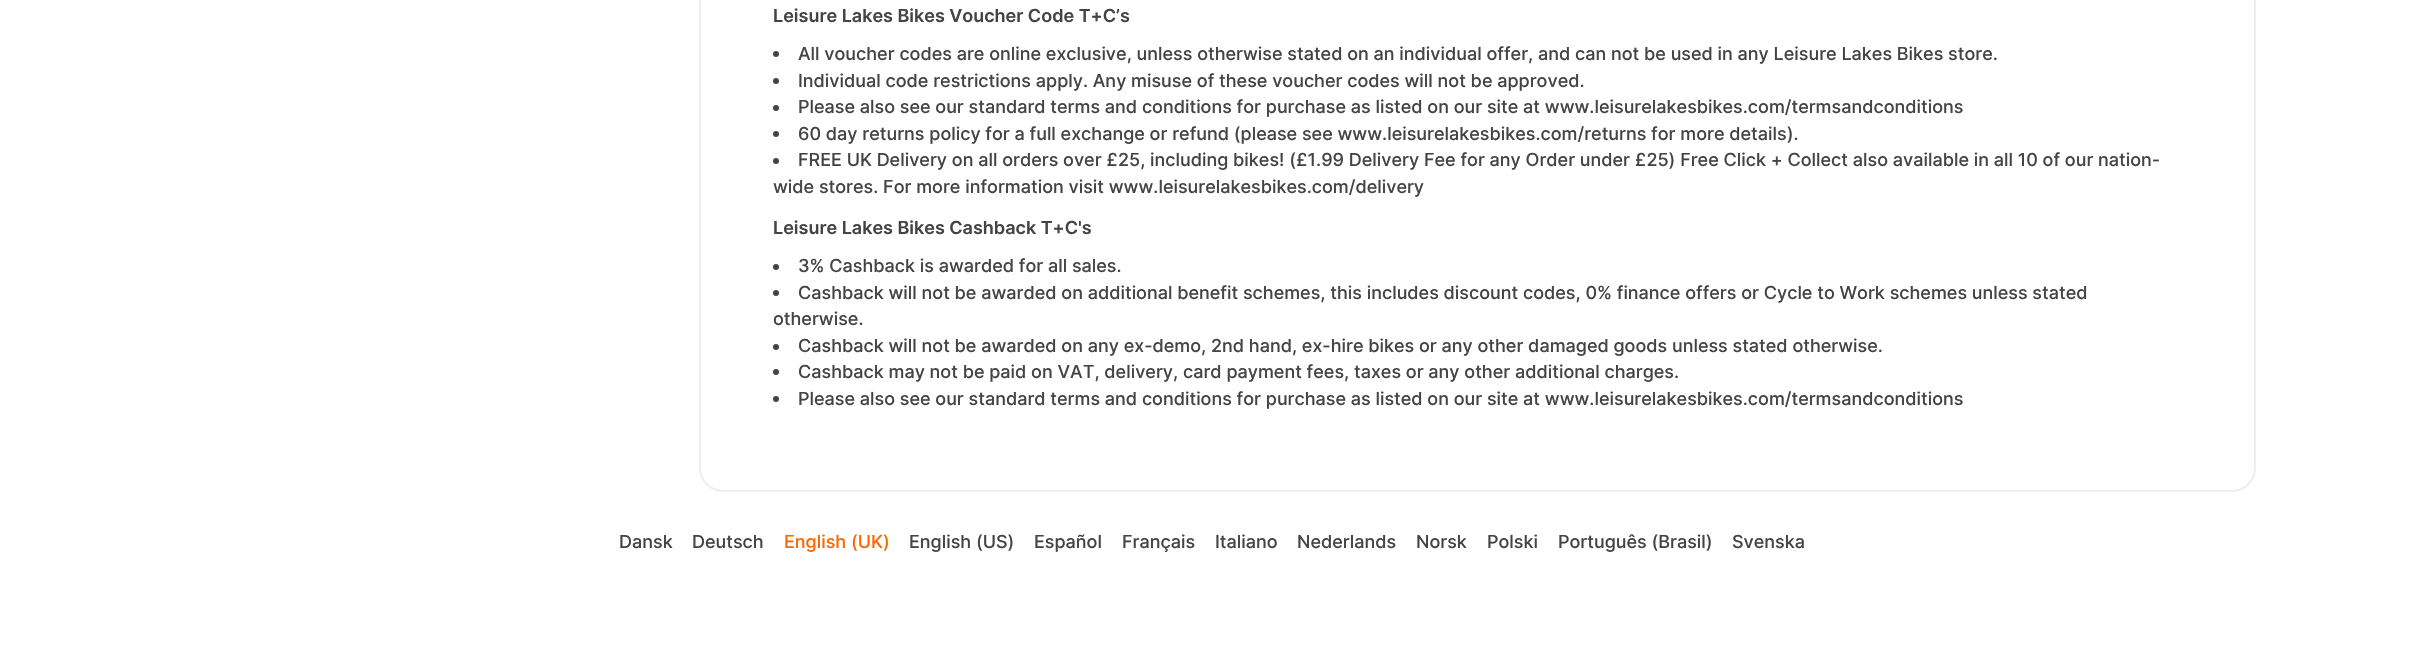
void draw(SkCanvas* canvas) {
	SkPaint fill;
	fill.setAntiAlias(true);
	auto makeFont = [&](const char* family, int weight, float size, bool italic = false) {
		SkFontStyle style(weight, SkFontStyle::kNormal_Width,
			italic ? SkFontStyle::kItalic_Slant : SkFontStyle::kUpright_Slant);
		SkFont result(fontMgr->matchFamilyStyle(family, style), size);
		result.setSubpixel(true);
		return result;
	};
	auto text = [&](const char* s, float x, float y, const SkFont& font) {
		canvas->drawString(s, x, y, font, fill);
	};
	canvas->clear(0xFFFFFFFF);
	fill.setStyle(SkPaint::kStroke_Style);
	fill.setStrokeWidth(2);
	fill.setColor(0xFFEEEEEE);
	canvas->drawPath(SkPathBuilder().moveTo(700, -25).lineTo(2255, -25).lineTo(2255, 468).cubicTo(2255, 480.5f, 2244.5f, 491, 2232, 491).lineTo(723, 491).cubicTo(710.5f, 491, 700, 480.5f, 700, 468).close().detach(), fill);
	fill.setStyle(SkPaint::kFill_Style);
	fill.setColor(0xFF444444);
	canvas->drawCircle(776, 54, 3, fill);
	canvas->drawCircle(776, 81, 3, fill);
	canvas->drawCircle(776, 108, 3, fill);
	canvas->drawCircle(776, 134, 3, fill);
	canvas->drawCircle(776, 161, 3, fill);
	canvas->drawCircle(776, 267, 3, fill);
	canvas->drawCircle(776, 293, 3, fill);
	canvas->drawCircle(776, 347, 3, fill);
	canvas->drawCircle(776, 372, 3, fill);
	canvas->drawCircle(776, 399, 3, fill);
	auto font1 = makeFont("Inter", 600, 18);
	text("Leisure Lakes Bikes Voucher Code T+C’s", 773, 22, font1);
	auto font2 = makeFont("Inter", 500, 18);
	text("All voucher codes are online exclusive, unless otherwise stated on an individual offer, and can not be used in any Leisure Lakes Bikes store.", 798, 60, font2);
	text("Individual code restrictions apply. Any misuse of these voucher codes will not be approved.", 798, 87, font2);
	text("Please also see our standard terms and conditions for purchase as listed on our site at www.leisurelakesbikes.com/termsandconditions", 798, 113, font2);
	text("60 day returns policy for a full exchange or refund (please see www.leisurelakesbikes.com/returns for more details).", 798, 140, font2);
	text("FREE UK Delivery on all orders over £25, including bikes! (£1.99 Delivery Fee for any Order under £25) Free Click + Collect also available in all 10 of our nation-", 798, 166, font2);
	text("wide stores. For more information visit www.leisurelakesbikes.com/delivery", 773, 193, font2);
	text("Leisure Lakes Bikes Cashback T+C's", 773, 234, font1);
	text("3% Cashback is awarded for all sales.", 798, 272, font2);
	text("Cashback will not be awarded on additional benefit schemes, this includes discount codes, 0% finance offers or Cycle to Work schemes unless stated", 798, 299, font2);
	text("otherwise.", 773, 325, font2);
	text("Cashback will not be awarded on any ex-demo, 2nd hand, ex-hire bikes or any other damaged goods unless stated otherwise.", 798, 352, font2);
	text("Cashback may not be paid on VAT, delivery, card payment fees, taxes or any other additional charges.", 798, 378, font2);
	text("Please also see our standard terms and conditions for purchase as listed on our site at www.leisurelakesbikes.com/termsandconditions", 798, 405, font2);
	text("Dansk", 619, 548, font2);
	text("Deutsch", 692, 548, font2);
	fill.setColor(0xFFFF6600);
	text("English (UK)", 784, 548, font2);
	fill.setColor(0xFF444444);
	text("English (US)", 909, 548, font2);
	text("Español", 1034, 548, font2);
	text("Français", 1122, 548, font2);
	text("Italiano", 1215, 548, font2);
	text("Nederlands", 1297, 548, font2);
	text("Norsk", 1416, 548, font2);
	text("Polski", 1487, 548, font2);
	text("Português (Brasil)", 1558, 548, font2);
	text("Svenska", 1732, 548, font2);
}
